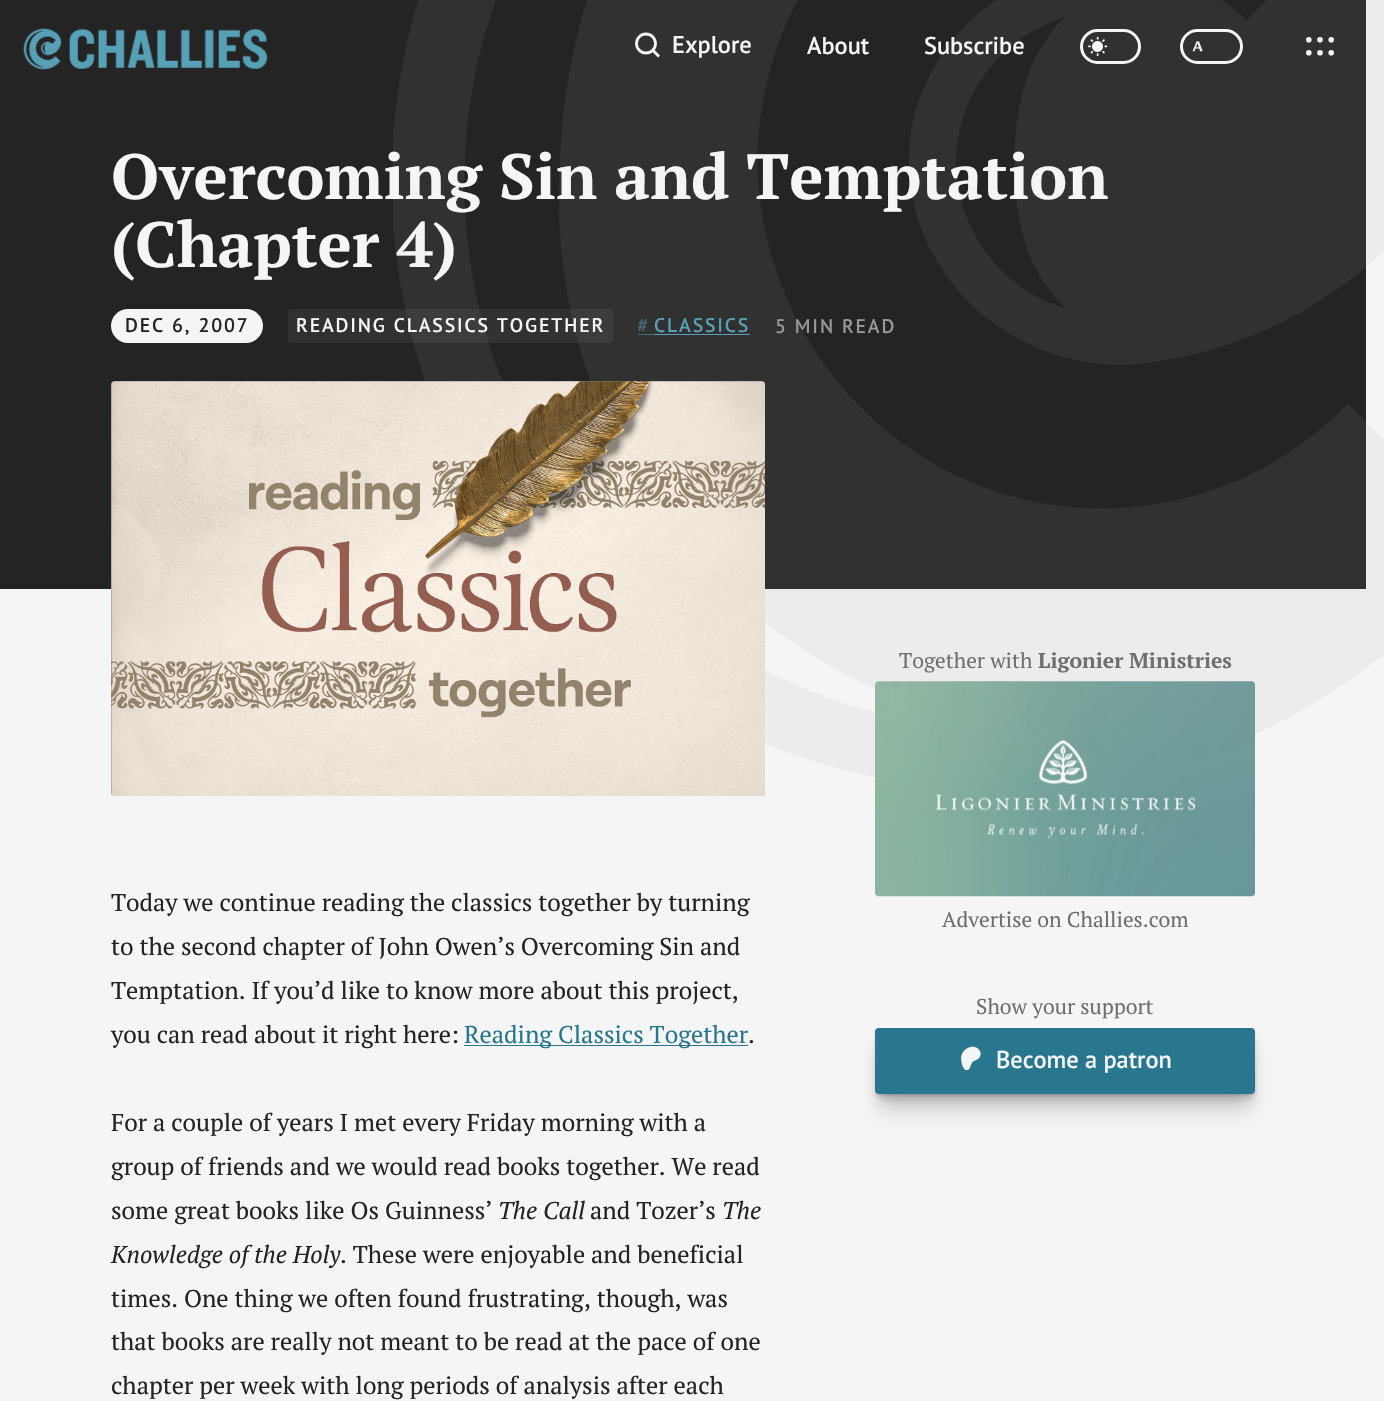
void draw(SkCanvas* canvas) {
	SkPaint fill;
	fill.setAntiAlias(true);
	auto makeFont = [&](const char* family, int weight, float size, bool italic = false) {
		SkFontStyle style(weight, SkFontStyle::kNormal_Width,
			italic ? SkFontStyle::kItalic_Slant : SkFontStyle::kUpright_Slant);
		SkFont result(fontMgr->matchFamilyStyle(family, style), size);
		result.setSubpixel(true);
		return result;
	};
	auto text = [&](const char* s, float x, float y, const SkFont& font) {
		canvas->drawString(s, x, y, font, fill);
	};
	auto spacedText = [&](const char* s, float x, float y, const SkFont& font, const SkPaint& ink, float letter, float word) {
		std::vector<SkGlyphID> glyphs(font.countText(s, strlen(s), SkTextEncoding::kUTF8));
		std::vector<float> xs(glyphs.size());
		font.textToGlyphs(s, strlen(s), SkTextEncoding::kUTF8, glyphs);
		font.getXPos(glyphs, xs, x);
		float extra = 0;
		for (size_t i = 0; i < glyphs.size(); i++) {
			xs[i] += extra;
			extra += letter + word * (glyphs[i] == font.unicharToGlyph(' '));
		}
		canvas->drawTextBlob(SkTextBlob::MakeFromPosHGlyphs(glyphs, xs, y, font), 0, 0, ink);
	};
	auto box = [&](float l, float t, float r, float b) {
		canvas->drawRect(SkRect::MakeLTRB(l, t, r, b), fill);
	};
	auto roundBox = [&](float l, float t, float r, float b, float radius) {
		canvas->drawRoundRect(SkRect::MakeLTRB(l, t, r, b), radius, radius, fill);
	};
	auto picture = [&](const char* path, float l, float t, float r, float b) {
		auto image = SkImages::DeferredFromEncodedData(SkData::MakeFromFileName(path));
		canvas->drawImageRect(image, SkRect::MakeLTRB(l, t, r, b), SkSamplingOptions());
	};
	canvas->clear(0xFFF5F5F5);
	fill.setColor(0xFF242424);
	box(0, 0, 1366, 589);
	picture("image0.png", 393, 0, 1384, 778);
	picture("image1.png", 23, 28, 268, 70);
	fill.setStyle(SkPaint::kStroke_Style);
	fill.setStrokeWidth(2.8f);
	fill.setColor(0xFFF5F5F5);
	canvas->drawCircle(646, 43.5f, 9.5f, fill);
	canvas->drawPath(SkPathBuilder().moveTo(652, 49.5f).lineTo(659, 56.5f).detach(), fill);
	fill.setStrokeWidth(3);
	canvas->drawRoundRect(SkRect::MakeLTRB(1081.5f, 30.5f, 1139.5f, 62.5f), 16, 16, fill);
	picture("image2.png", 1088, 36, 1108, 57);
	canvas->drawRoundRect(SkRect::MakeLTRB(1181.5f, 30.5f, 1241.5f, 62.5f), 16, 16, fill);
	picture("image3.png", 1192, 41, 1203, 52);
	fill.setStyle(SkPaint::kFill_Style);
	canvas->drawCircle(1308.8f, 39.7f, 2.8f, fill);
	canvas->drawCircle(1320, 39.7f, 2.8f, fill);
	canvas->drawCircle(1331.2f, 39.7f, 2.8f, fill);
	canvas->drawCircle(1308.8f, 52.8f, 2.8f, fill);
	canvas->drawCircle(1320, 52.8f, 2.8f, fill);
	canvas->drawCircle(1331.2f, 52.8f, 2.8f, fill);
	roundBox(111, 309, 263, 343, 17);
	fill.setColor(0x247D7D7D);
	roundBox(288, 309, 613, 343, 4);
	fill.setColor(0xFF446974);
	box(638, 334, 654, 335);
	fill.setColor(0xFF57A1B7);
	box(654, 334, 750, 335);
	fill.setColor(0xFF808080);
	roundBox(111, 381, 765, 796, 4);
	picture("image4.png", 111, 381, 765, 796);
	fill.setColor(0xFF28778F);
	box(464, 1045, 748, 1046);
	picture("image5.png", 875, 681, 1255, 897);
	fill.setColor(0x2E000000);
	fill.setMaskFilter(SkMaskFilter::MakeBlur(kNormal_SkBlurStyle, 10));
	canvas->drawRect(SkRect::MakeLTRB(880, 1051, 1250, 1109), fill);
	fill.setMaskFilter(nullptr);
	fill.setMaskFilter(SkMaskFilter::MakeBlur(kNormal_SkBlurStyle, 4));
	canvas->drawRoundRect(SkRect::MakeLTRB(878, 1039, 1253, 1099), 0.5f, 0.5f, fill);
	fill.setMaskFilter(nullptr);
	fill.setMaskFilter(SkMaskFilter::MakeBlur(kNormal_SkBlurStyle, 1.5f));
	canvas->drawRoundRect(SkRect::MakeLTRB(876, 1033, 1254, 1095), 2, 2, fill);
	fill.setMaskFilter(nullptr);
	fill.setColor(0xFF28778F);
	roundBox(875, 1028, 1255, 1094, 4);
	picture("image6.png", 961, 1046, 981, 1070);
	auto font1 = makeFont("PT Sans", 600, 24.35f);
	fill.setColor(0xFFF5F5F5);
	text("Explore", 672, 53, font1);
	text("About", 807, 54, font1);
	text("Subscribe", 924, 54, font1);
	auto font2 = makeFont("PT Serif", 700, 63.9f);
	text("Overcoming Sin and Temptation", 111, 199, font2);
	text("(Chapter 4)", 111, 267, font2);
	auto font3 = makeFont("PT Sans", 600, 19.75f);
	fill.setColor(0xFF242424);
	spacedText("DEC 6, 2007", 125, 332, font3, fill, 1.85f, 0);
	fill.setColor(0xFFF5F5F5);
	spacedText("READING CLASSICS TOGETHER", 296, 332, font3, fill, 1.85f, 0);
	fill.setColor(0xFF446974);
	spacedText("#", 637, 332, font3, fill, 1.85f, 0);
	fill.setColor(0xFF57A1B7);
	spacedText("CLASSICS", 654, 332, font3, fill, 1.85f, 0);
	fill.setColor(0xFF989898);
	spacedText("5 MIN READ", 775, 333, font3, fill, 1.85f, 0);
	auto font4 = makeFont("PT Serif", 400, 24.35f);
	fill.setColor(0xFF242424);
	text("Today we continue reading the classics together by turning", 111, 911, font4);
	text("to the second chapter of John Owen’s Overcoming Sin and", 111, 955, font4);
	text("Temptation. If you’d like to know more about this project,", 111, 999, font4);
	text("you can read about it right here:", 111, 1043, font4);
	fill.setColor(0xFF28778F);
	text("Reading Classics Together", 464, 1043, font4);
	fill.setColor(0xFF242424);
	text(".", 748, 1043, font4);
	text("For a couple of years I met every Friday morning with a", 111, 1131, font4);
	text("group of friends and we would read books together. We read", 111, 1175, font4);
	text("some great books like Os Guinness’", 111, 1219, font4);
	auto font5 = makeFont("PT Serif", 400, 24.35f, true);
	text("The Call", 498, 1219, font5);
	text("and Tozer’s", 590, 1219, font4);
	text("The", 722, 1219, font5);
	text("Knowledge of the Holy", 111, 1263, font5);
	text(". These were enjoyable and beneficial", 340, 1263, font4);
	text("times. One thing we often found frustrating, though, was", 111, 1307, font4);
	text("that books are really not meant to be read at the pace of one", 111, 1350, font4);
	text("chapter per week with long periods of analysis after each", 111, 1394, font4);
	auto font6 = makeFont("PT Serif", 400, 21.25f);
	fill.setColor(0xFF6F6F6F);
	text("Together with", 899, 668, font6);
	auto font7 = makeFont("PT Serif", 700, 21.25f);
	text("Ligonier Ministries", 1038, 668, font7);
	text("Advertise on Challies.com", 942, 927, font6);
	text("Show your support", 976, 1014, font6);
	fill.setColor(0xFFF5F5F5);
	text("Become a patron", 996, 1068, font1);
}
